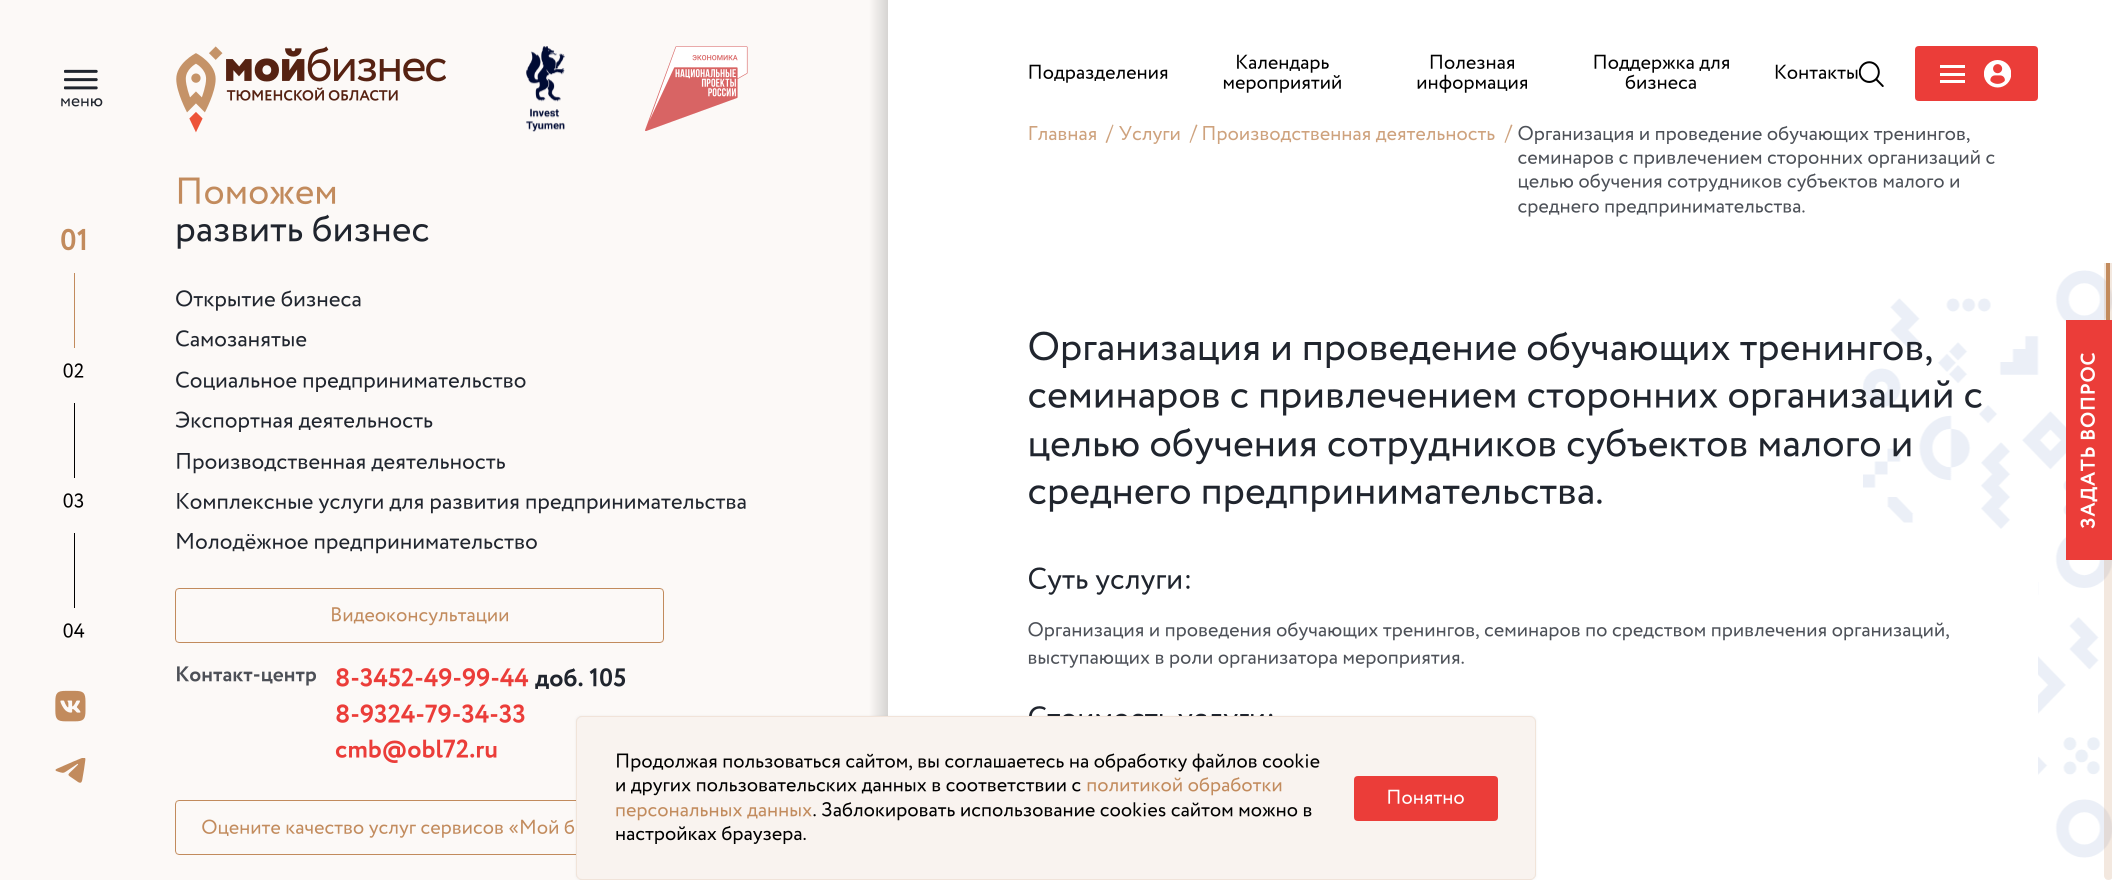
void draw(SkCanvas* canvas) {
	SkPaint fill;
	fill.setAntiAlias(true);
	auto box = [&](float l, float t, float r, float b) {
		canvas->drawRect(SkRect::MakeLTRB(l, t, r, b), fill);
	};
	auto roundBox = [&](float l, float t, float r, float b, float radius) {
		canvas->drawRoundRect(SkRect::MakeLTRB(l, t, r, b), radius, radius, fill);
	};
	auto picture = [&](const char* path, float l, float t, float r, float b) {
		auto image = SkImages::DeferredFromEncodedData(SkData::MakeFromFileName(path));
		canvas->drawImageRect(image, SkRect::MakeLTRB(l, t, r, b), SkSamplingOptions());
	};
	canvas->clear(0xFFFFFFFF);
	fill.setColor(0xFFFCF9F7);
	box(0, 0, 869, 880);
	picture("image0.png", 178, 177, 336, 205);
	picture("image1.png", 177, 214, 429, 249);
	picture("image2.png", 176, 290, 361, 311);
	picture("image3.png", 176, 330, 307, 347);
	picture("image4.png", 176, 371, 526, 392);
	picture("image5.png", 175, 411, 433, 432);
	picture("image6.png", 177, 453, 505, 474);
	picture("image7.png", 177, 493, 746, 514);
	picture("image8.png", 177, 533, 537, 554);
	{
		const SkColor colors[] = {0xFFFCF9F7, 0xFFD6D4D2};
		const float stops[] = {0, 1};
		const SkPoint ends[] = {{869, 440}, {888, 440}};
		fill.setShader(SkGradientShader::MakeLinear(ends, colors, stops, 2, SkTileMode::kClamp));
		fill.setAlpha(255);
	}
	box(869, 0, 888, 716);
	fill.setStyle(SkPaint::kStroke_Style);
	fill.setStrokeWidth(1);
	fill.setShader(nullptr);
	fill.setColor(0xFFC28B5D);
	canvas->drawRoundRect(SkRect::MakeLTRB(175.5f, 588.5f, 663.5f, 642.5f), 3.5f, 3.5f, fill);
	picture("image9.png", 332, 607, 508, 626);
	picture("image10.png", 177, 666, 316, 686);
	picture("image11.png", 336, 668, 529, 687);
	picture("image12.png", 535, 668, 626, 689);
	picture("image13.png", 336, 704, 525, 723);
	picture("image14.png", 335, 739, 497, 763);
	canvas->drawRoundRect(SkRect::MakeLTRB(175.5f, 800.5f, 663.5f, 854.5f), 3.5f, 3.5f, fill);
	picture("image15.png", 202, 819, 575, 838);
	picture("image50.png", 1863, 270, 2112, 858);
	fill.setStyle(SkPaint::kFill_Style);
	fill.setColor(0x33C28B5D);
	roundBox(2104, 0, 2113, 880, 4.5f);
	fill.setColor(0xFFFFFFFF);
	box(2104, 0, 2112, 263);
	picture("image16.png", 1029, 64, 1168, 83);
	picture("image17.png", 1237, 54, 1329, 73);
	picture("image18.png", 1223, 75, 1341, 93);
	picture("image19.png", 1430, 54, 1514, 69);
	picture("image20.png", 1417, 74, 1527, 93);
	picture("image21.png", 1594, 54, 1729, 73);
	picture("image22.png", 1625, 74, 1696, 89);
	picture("image23.png", 1775, 64, 1858, 79);
	picture("image24.png", 1859, 61, 1884, 87);
	fill.setColor(0xFFEB3D39);
	roundBox(1915, 46, 2038, 101, 4);
	fill.setColor(0xFFFFFFFF);
	box(1940, 65, 1965, 68);
	box(1940, 73, 1965, 76);
	box(1940, 80, 1965, 83);
	picture("image25.png", 1984, 60, 2011, 88);
	picture("image26.png", 1029, 126, 1096, 141);
	fill.setColor(0xFFCEA27D);
	canvas->drawPath(SkPathBuilder().moveTo(1107, 143).lineTo(1105.5f, 142.5f).lineTo(1112.5f, 124.5f).lineTo(1113.5f, 125).close().detach(), fill);
	picture("image27.png", 1119, 126, 1180, 144);
	canvas->drawPath(SkPathBuilder().moveTo(1190.5f, 143).lineTo(1189.5f, 142.5f).lineTo(1196, 124.5f).lineTo(1197.5f, 125).close().detach(), fill);
	picture("image28.png", 1203, 126, 1495, 144);
	canvas->drawPath(SkPathBuilder().moveTo(1505.5f, 143).lineTo(1504.5f, 142.5f).lineTo(1511, 124.5f).lineTo(1512.5f, 125).close().detach(), fill);
	picture("image29.png", 1518, 125, 1970, 144);
	picture("image30.png", 1518, 150, 1995, 168);
	picture("image31.png", 1518, 173, 1959, 192);
	picture("image32.png", 1518, 203, 1805, 217);
	picture("image33.png", 1029, 331, 1932, 368);
	picture("image34.png", 1029, 380, 1982, 416);
	picture("image35.png", 1030, 428, 1911, 465);
	picture("image36.png", 1029, 485, 1602, 512);
	fill.setColor(0xFFFFFFFF);
	canvas->drawPath(SkPathBuilder().moveTo(1034, 535).lineTo(2032, 535).cubicTo(2035.5f, 535, 2038, 537.5f, 2038, 541).lineTo(2038, 880).lineTo(1028, 880).lineTo(1028, 541).cubicTo(1028, 537.5f, 1030.5f, 535, 1034, 535).close().detach(), fill);
	picture("image37.png", 1029, 567, 1190, 595);
	picture("image38.png", 1028, 622, 1949, 641);
	picture("image39.png", 1028, 654, 1464, 668);
	picture("image40.png", 1029, 706, 1273, 716);
	fill.setColor(0xFFC28B5D);
	box(2106, 263, 2110, 320);
	picture("image41.png", 64, 69, 98, 90);
	picture("image42.png", 61, 98, 103, 107);
	picture("image43.png", 176, 46, 446, 133);
	picture("image44.png", 526, 46, 565, 132);
	picture("image45.png", 645, 46, 748, 131);
	picture("image46.png", 61, 228, 86, 251);
	box(74, 273, 75, 348);
	picture("image47.png", 63, 363, 84, 378);
	fill.setColor(0xFF000000);
	box(74, 403, 75, 478);
	picture("image48.png", 63, 493, 84, 508);
	box(74, 533, 75, 608);
	picture("image49.png", 63, 623, 85, 638);
	fill.setColor(0xFFEB3D39);
	box(2066, 320, 2112, 560);
	picture("image51.png", 2080, 353, 2098, 529);
	picture("image52.png", 55, 690, 86, 722);
	picture("image53.png", 55, 758, 86, 783);
	fill.setColor(0x0A000000);
	fill.setMaskFilter(SkMaskFilter::MakeBlur(kNormal_SkBlurStyle, 0.5f));
	canvas->drawRoundRect(SkRect::MakeLTRB(576, 716, 1536, 880), 6, 6, fill);
	fill.setMaskFilter(nullptr);
	fill.setColor(0x0F000000);
	fill.setMaskFilter(SkMaskFilter::MakeBlur(kNormal_SkBlurStyle, 1));
	canvas->drawRoundRect(SkRect::MakeLTRB(576, 716, 1536, 880), 6, 6, fill);
	fill.setMaskFilter(nullptr);
	fill.setColor(0xFFF9F3EF);
	roundBox(576, 716, 1536, 880, 6);
	fill.setStyle(SkPaint::kStroke_Style);
	fill.setColor(0x26C28B5D);
	canvas->drawRoundRect(SkRect::MakeLTRB(576.5f, 716.5f, 1535.5f, 879.5f), 5.5f, 5.5f, fill);
	picture("image54.png", 617, 753, 1320, 772);
	picture("image55.png", 616, 782, 1081, 796);
	picture("image56.png", 1087, 777, 1282, 796);
	picture("image57.png", 616, 807, 812, 821);
	picture("image58.png", 813, 802, 1312, 821);
	picture("image59.png", 616, 825, 806, 844);
	fill.setStyle(SkPaint::kFill_Style);
	fill.setColor(0xFFEB3D39);
	roundBox(1354, 776, 1498, 821, 4);
	picture("image60.png", 1388, 789, 1464, 804);
}
